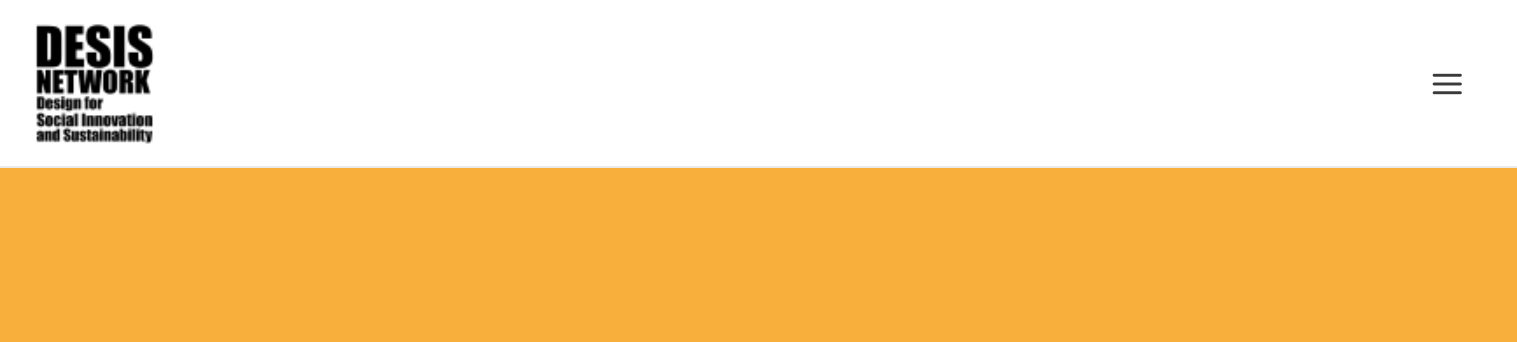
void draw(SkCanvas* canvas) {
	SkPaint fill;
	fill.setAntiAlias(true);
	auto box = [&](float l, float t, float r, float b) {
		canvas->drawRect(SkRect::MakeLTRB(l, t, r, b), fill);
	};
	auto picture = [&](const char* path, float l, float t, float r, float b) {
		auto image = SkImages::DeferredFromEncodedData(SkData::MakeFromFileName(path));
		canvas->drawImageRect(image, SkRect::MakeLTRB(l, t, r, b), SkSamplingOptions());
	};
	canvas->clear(0xFFFFFFFF);
	fill.setColor(0xFFEAEAEA);
	box(0, 166, 1517, 168);
	picture("image0.png", 35, 24, 154, 144);
	picture("image1.png", 1432, 73, 1462, 95);
	fill.setColor(0xFFF9AF3B);
	box(0, 168, 1517, 342);
}
